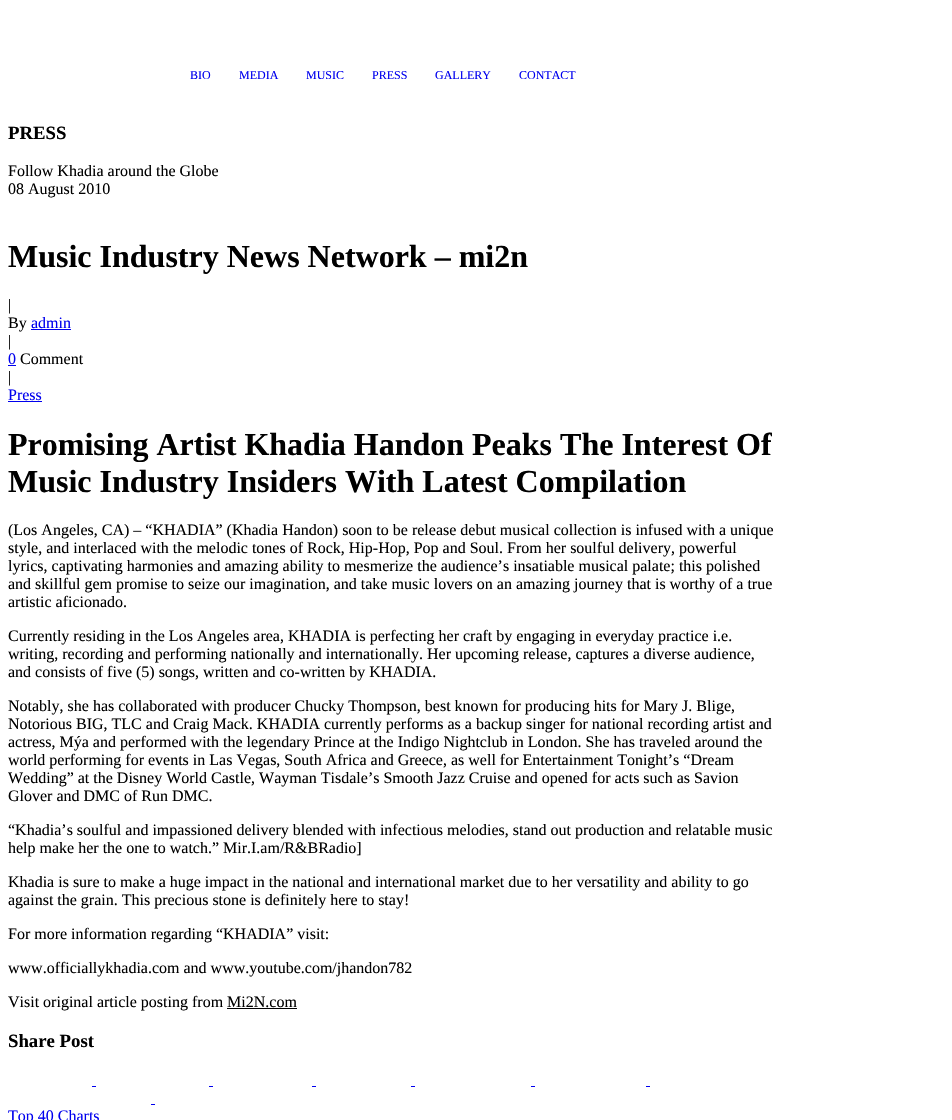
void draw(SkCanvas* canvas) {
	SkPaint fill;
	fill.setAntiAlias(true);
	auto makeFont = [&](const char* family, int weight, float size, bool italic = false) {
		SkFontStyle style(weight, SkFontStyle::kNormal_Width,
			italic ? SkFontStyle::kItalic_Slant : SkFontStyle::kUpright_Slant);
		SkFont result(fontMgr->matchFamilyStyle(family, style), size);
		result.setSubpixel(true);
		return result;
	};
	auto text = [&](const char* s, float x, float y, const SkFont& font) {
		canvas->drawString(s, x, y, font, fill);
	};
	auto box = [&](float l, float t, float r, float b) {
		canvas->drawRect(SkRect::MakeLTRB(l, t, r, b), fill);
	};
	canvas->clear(0xFFFFFFFF);
	fill.setColor(0xFF0000EE);
	box(31, 329, 71, 330);
	box(8, 365, 16, 366);
	box(8, 401, 42, 402);
	fill.setColor(0xFF000000);
	box(227, 1008, 297, 1009);
	fill.setColor(0xFF0000EE);
	box(92, 1086, 96, 1087);
	box(209, 1086, 213, 1087);
	box(312, 1086, 316, 1087);
	box(411, 1086, 415, 1087);
	box(531, 1086, 535, 1087);
	box(646, 1086, 650, 1087);
	box(151, 1104, 155, 1105);
	auto font1 = makeFont("Liberation Serif", 400, 12);
	text("BIO", 190, 79, font1);
	text("MEDIA", 239, 79, font1);
	text("MUSIC", 306, 79, font1);
	text("PRESS", 372, 79, font1);
	text("GALLERY", 435, 79, font1);
	text("CONTACT", 519, 79, font1);
	auto font2 = makeFont("Liberation Serif", 700, 18.75f);
	fill.setColor(0xFF000000);
	text("PRESS", 8, 139, font2);
	auto font3 = makeFont("Liberation Serif", 400, 16);
	text("Follow Khadia around the Globe", 8, 176, font3);
	text("08 August 2010", 8, 194, font3);
	auto font4 = makeFont("Liberation Serif", 700, 32);
	text("Music Industry News Network – mi2n", 8, 267, font4);
	text("|", 8, 310, font3);
	text("By", 8, 328, font3);
	fill.setColor(0xFF0000EE);
	text("admin", 31, 328, font3);
	fill.setColor(0xFF000000);
	text("|", 8, 346, font3);
	fill.setColor(0xFF0000EE);
	text("0", 8, 364, font3);
	fill.setColor(0xFF000000);
	text("Comment", 20, 364, font3);
	text("|", 8, 382, font3);
	fill.setColor(0xFF0000EE);
	text("Press", 8, 400, font3);
	fill.setColor(0xFF000000);
	text("Promising Artist Khadia Handon Peaks The Interest Of", 8, 455, font4);
	text("Music Industry Insiders With Latest Compilation", 8, 492, font4);
	text("(Los Angeles, CA) – “KHADIA” (Khadia Handon) soon to be release debut musical collection is infused with a unique", 8, 535, font3);
	text("style, and interlaced with the melodic tones of Rock, Hip-Hop, Pop and Soul. From her soulful delivery, powerful", 8, 553, font3);
	text("lyrics, captivating harmonies and amazing ability to mesmerize the audience’s insatiable musical palate; this polished", 8, 571, font3);
	text("and skillful gem promise to seize our imagination, and take music lovers on an amazing journey that is worthy of a true", 8, 589, font3);
	text("artistic aficionado.", 8, 607, font3);
	text("Currently residing in the Los Angeles area, KHADIA is perfecting her craft by engaging in everyday practice i.e.", 8, 641, font3);
	text("writing, recording and performing nationally and internationally. Her upcoming release, captures a diverse audience,", 8, 659, font3);
	text("and consists of five (5) songs, written and co-written by KHADIA.", 8, 677, font3);
	text("Notably, she has collaborated with producer Chucky Thompson, best known for producing hits for Mary J. Blige,", 8, 711, font3);
	text("Notorious BIG, TLC and Craig Mack. KHADIA currently performs as a backup singer for national recording artist and", 8, 729, font3);
	text("actress, Mýa and performed with the legendary Prince at the Indigo Nightclub in London. She has traveled around the", 8, 747, font3);
	text("world performing for events in Las Vegas, South Africa and Greece, as well for Entertainment Tonight’s “Dream", 8, 765, font3);
	text("Wedding” at the Disney World Castle, Wayman Tisdale’s Smooth Jazz Cruise and opened for acts such as Savion", 8, 783, font3);
	text("Glover and DMC of Run DMC.", 8, 801, font3);
	text("“Khadia’s soulful and impassioned delivery blended with infectious melodies, stand out production and relatable music", 8, 835, font3);
	text("help make her the one to watch.” Mir.I.am/R&BRadio]", 8, 853, font3);
	text("Khadia is sure to make a huge impact in the national and international market due to her versatility and ability to go", 8, 887, font3);
	text("against the grain. This precious stone is definitely here to stay!", 8, 905, font3);
	text("For more information regarding “KHADIA” visit:", 8, 939, font3);
	text("www.officiallykhadia.com and www.youtube.com/jhandon782", 8, 973, font3);
	text("Visit original article posting from Mi2N.com", 8, 1007, font3);
	text("Share Post", 8, 1047, font2);
	fill.setColor(0xFF0000EE);
	text("Top 40 Charts", 8, 1121, font3);
}
